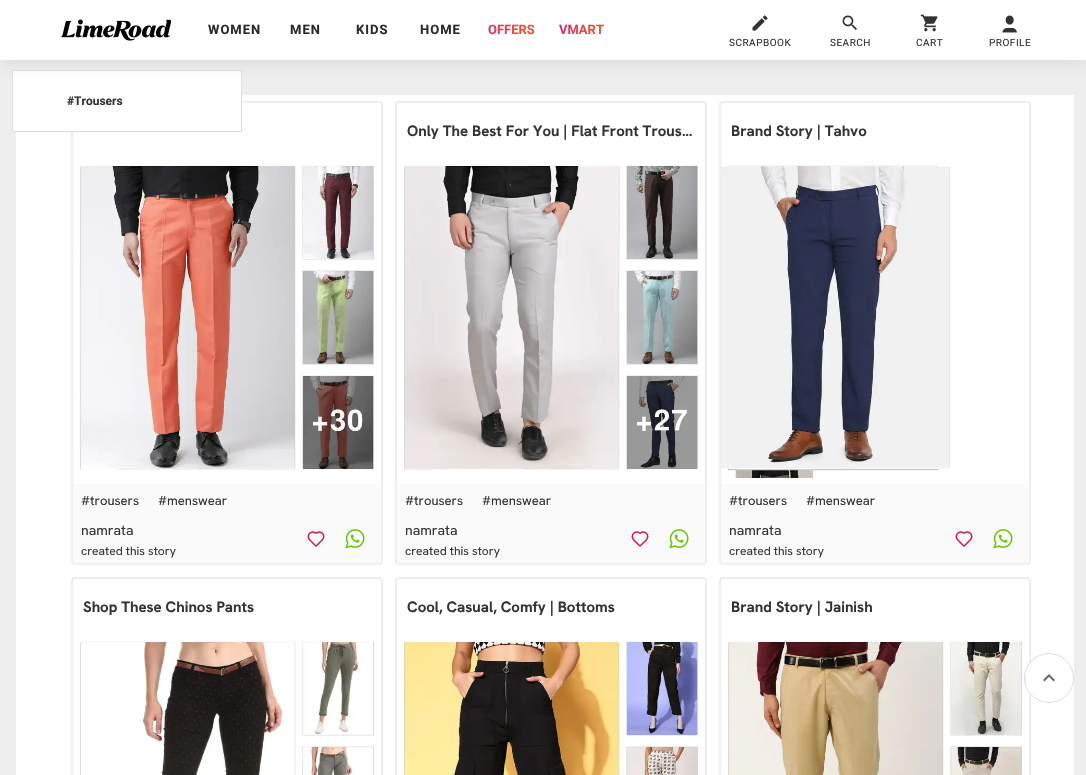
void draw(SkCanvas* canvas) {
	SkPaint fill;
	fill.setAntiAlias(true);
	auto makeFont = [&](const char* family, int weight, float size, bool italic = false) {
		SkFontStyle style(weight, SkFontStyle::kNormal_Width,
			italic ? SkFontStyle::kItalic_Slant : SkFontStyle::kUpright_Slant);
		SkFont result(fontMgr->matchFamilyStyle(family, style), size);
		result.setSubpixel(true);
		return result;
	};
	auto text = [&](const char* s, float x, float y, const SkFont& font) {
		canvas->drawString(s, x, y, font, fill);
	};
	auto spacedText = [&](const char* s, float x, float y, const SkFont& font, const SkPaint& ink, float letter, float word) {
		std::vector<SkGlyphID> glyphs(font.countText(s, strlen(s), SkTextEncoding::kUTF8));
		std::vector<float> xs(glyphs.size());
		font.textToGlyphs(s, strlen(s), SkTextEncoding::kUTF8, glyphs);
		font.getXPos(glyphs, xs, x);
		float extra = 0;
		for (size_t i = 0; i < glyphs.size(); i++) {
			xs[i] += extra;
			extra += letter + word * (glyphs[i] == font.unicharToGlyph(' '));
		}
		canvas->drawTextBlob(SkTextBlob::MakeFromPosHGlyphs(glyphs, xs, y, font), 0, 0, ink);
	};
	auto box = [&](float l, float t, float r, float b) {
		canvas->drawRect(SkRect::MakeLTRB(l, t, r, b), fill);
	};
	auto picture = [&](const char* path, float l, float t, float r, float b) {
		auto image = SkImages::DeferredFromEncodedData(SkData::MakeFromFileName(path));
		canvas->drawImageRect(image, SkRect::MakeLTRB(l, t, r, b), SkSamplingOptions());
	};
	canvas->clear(0xFFEEEEEE);
	fill.setColor(0xFFFFFFFF);
	box(16, 95, 1074, 775);
	fill.setStyle(SkPaint::kStroke_Style);
	fill.setStrokeWidth(2);
	fill.setColor(0xFFEEEEEE);
	canvas->drawRoundRect(SkRect::MakeLTRB(72, 102, 382, 564), 3, 3, fill);
	fill.setStyle(SkPaint::kFill_Style);
	fill.setColor(0xFFFFFFFF);
	canvas->drawPath(SkPathBuilder().moveTo(75, 103).lineTo(379, 103).cubicTo(380, 103, 381, 104, 381, 105).lineTo(381, 484).lineTo(73, 484).lineTo(73, 105).cubicTo(73, 104, 74, 103, 75, 103).close().detach(), fill);
	canvas->drawRect(SkRect::MakeLTRB(12.5f, 70.5f, 241.5f, 131.5f), fill);
	fill.setStyle(SkPaint::kStroke_Style);
	fill.setStrokeWidth(1);
	fill.setColor(0xFFDDDDDD);
	canvas->drawRect(SkRect::MakeLTRB(12.5f, 70.5f, 241.5f, 131.5f), fill);
	fill.setStyle(SkPaint::kFill_Style);
	fill.setColor(0x29555555);
	fill.setMaskFilter(SkMaskFilter::MakeBlur(kNormal_SkBlurStyle, 8));
	canvas->drawRect(SkRect::MakeLTRB(0, 2, 1086, 62), fill);
	fill.setMaskFilter(nullptr);
	fill.setColor(0xFFFFFFFF);
	box(0, 0, 1086, 60);
	picture("image0.png", 61, 19, 171, 41);
	picture("image1.png", 752, 15, 768, 31);
	picture("image2.png", 842, 15, 857, 30);
	picture("image3.png", 920, 14, 938, 32);
	picture("image4.png", 1002, 15, 1017, 33);
	picture("image5.png", 79, 165, 375, 470);
	fill.setColor(0xFFFAFAFA);
	canvas->drawPath(SkPathBuilder().moveTo(73, 484).lineTo(381, 484).lineTo(381, 561).cubicTo(381, 562, 380, 563, 379, 563).lineTo(75, 563).cubicTo(74, 563, 73, 562, 73, 561).close().detach(), fill);
	picture("image6.png", 307, 531, 325, 547);
	picture("image7.png", 345, 529, 365, 549);
	fill.setStyle(SkPaint::kStroke_Style);
	fill.setStrokeWidth(2);
	fill.setColor(0xFFEEEEEE);
	canvas->drawRoundRect(SkRect::MakeLTRB(396, 102, 706, 564), 3, 3, fill);
	fill.setStyle(SkPaint::kFill_Style);
	fill.setColor(0xFFFFFFFF);
	canvas->drawPath(SkPathBuilder().moveTo(399, 103).lineTo(703, 103).cubicTo(704, 103, 705, 104, 705, 105).lineTo(705, 484).lineTo(397, 484).lineTo(397, 105).cubicTo(397, 104, 398, 103, 399, 103).close().detach(), fill);
	picture("image8.png", 404, 165, 699, 470);
	fill.setColor(0xFFFAFAFA);
	canvas->drawPath(SkPathBuilder().moveTo(397, 484).lineTo(705, 484).lineTo(705, 561).cubicTo(705, 562, 704, 563, 703, 563).lineTo(399, 563).cubicTo(398, 563, 397, 562, 397, 561).close().detach(), fill);
	picture("image6.png", 631, 531, 649, 547);
	picture("image7.png", 669, 529, 689, 549);
	fill.setStyle(SkPaint::kStroke_Style);
	fill.setColor(0xFFEEEEEE);
	canvas->drawRoundRect(SkRect::MakeLTRB(720, 102, 1030, 564), 3, 3, fill);
	fill.setStyle(SkPaint::kFill_Style);
	fill.setColor(0xFFFFFFFF);
	canvas->drawPath(SkPathBuilder().moveTo(723, 103).lineTo(1027, 103).cubicTo(1028, 103, 1029, 104, 1029, 105).lineTo(1029, 484).lineTo(721, 484).lineTo(721, 105).cubicTo(721, 104, 722, 103, 723, 103).close().detach(), fill);
	picture("image9.png", 721, 165, 950, 478);
	fill.setColor(0xFFFAFAFA);
	canvas->drawPath(SkPathBuilder().moveTo(721, 484).lineTo(1029, 484).lineTo(1029, 561).cubicTo(1029, 562, 1028, 563, 1027, 563).lineTo(723, 563).cubicTo(722, 563, 721, 562, 721, 561).close().detach(), fill);
	picture("image6.png", 955, 531, 973, 547);
	picture("image7.png", 993, 529, 1013, 549);
	fill.setStyle(SkPaint::kStroke_Style);
	fill.setColor(0xFFEEEEEE);
	canvas->drawRoundRect(SkRect::MakeLTRB(72, 578, 382, 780), 3, 3, fill);
	fill.setStyle(SkPaint::kFill_Style);
	fill.setColor(0xFFFFFFFF);
	canvas->drawPath(SkPathBuilder().moveTo(75, 579).lineTo(379, 579).cubicTo(380, 579, 381, 580, 381, 581).lineTo(381, 775).lineTo(73, 775).lineTo(73, 581).cubicTo(73, 580, 74, 579, 75, 579).close().detach(), fill);
	picture("image10.png", 80, 639, 375, 775);
	fill.setStyle(SkPaint::kStroke_Style);
	fill.setColor(0xFFEEEEEE);
	canvas->drawRoundRect(SkRect::MakeLTRB(396, 578, 706, 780), 3, 3, fill);
	fill.setStyle(SkPaint::kFill_Style);
	fill.setColor(0xFFFFFFFF);
	canvas->drawPath(SkPathBuilder().moveTo(399, 579).lineTo(703, 579).cubicTo(704, 579, 705, 580, 705, 581).lineTo(705, 775).lineTo(397, 775).lineTo(397, 581).cubicTo(397, 580, 398, 579, 399, 579).close().detach(), fill);
	picture("image11.png", 401, 639, 699, 775);
	fill.setStyle(SkPaint::kStroke_Style);
	fill.setColor(0xFFEEEEEE);
	canvas->drawRoundRect(SkRect::MakeLTRB(720, 578, 1030, 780), 3, 3, fill);
	fill.setStyle(SkPaint::kFill_Style);
	fill.setColor(0xFFFFFFFF);
	canvas->drawPath(SkPathBuilder().moveTo(723, 579).lineTo(1027, 579).cubicTo(1028, 579, 1029, 580, 1029, 581).lineTo(1029, 775).lineTo(721, 775).lineTo(721, 581).cubicTo(721, 580, 722, 579, 723, 579).close().detach(), fill);
	picture("image12.png", 728, 640, 1023, 775);
	canvas->drawCircle(1049, 678, 24.5f, fill);
	fill.setStyle(SkPaint::kStroke_Style);
	fill.setStrokeWidth(1);
	fill.setColor(0xFFDDDDDD);
	canvas->drawCircle(1049, 678, 24.5f, fill);
	picture("image13.png", 1043, 674, 1055, 682);
	auto font1 = makeFont("Roboto", 700, 13);
	fill.setStyle(SkPaint::kFill_Style);
	fill.setColor(0xFF2A2A2A);
	spacedText("WOMEN", 208, 34, font1, fill, 1, 0);
	spacedText("MEN", 290, 34, font1, fill, 1, 0);
	spacedText("KIDS", 356, 34, font1, fill, 1, 0);
	spacedText("HOME", 420, 34, font1, fill, 1, 0);
	{
		const SkColor colors[] = {0xFFCE297E, 0xFFED5133};
		const float stops[] = {0, 0.73f};
		const SkPoint ends[] = {{489, 15}, {531, 42}};
		fill.setShader(SkGradientShader::MakeLinear(ends, colors, stops, 2, SkTileMode::kClamp));
		fill.setAlpha(255);
	}
	text("OFFERS", 488, 34, font1);
	{
		const SkColor colors[] = {0xFFCE297E, 0xFFED5133};
		const float stops[] = {0, 0.73f};
		const SkPoint ends[] = {{560, 16}, {600, 42}};
		fill.setShader(SkGradientShader::MakeLinear(ends, colors, stops, 2, SkTileMode::kClamp));
		fill.setAlpha(255);
	}
	text("VMART", 559, 34, font1);
	auto font2 = makeFont("Roboto", 400, 10);
	fill.setShader(nullptr);
	fill.setColor(0xFF333333);
	spacedText("SCRAPBOOK", 729, 46, font2, fill, 0.5f, 0);
	spacedText("SEARCH", 830, 46, font2, fill, 0.5f, 0);
	spacedText("CART", 916, 46, font2, fill, 0.5f, 0);
	spacedText("PROFILE", 989, 46, font2, fill, 0.5f, 0);
	auto font3 = makeFont("Roboto", 700, 12);
	text("#Trousers", 67, 105, font3);
	auto font4 = makeFont("Hanken Grotesk", 400, 13);
	text("#trousers", 81, 505, font4);
	text("#menswear", 158, 505, font4);
	auto font5 = makeFont("Hanken Grotesk", 400, 14);
	text("namrata", 81, 535, font5);
	auto font6 = makeFont("Hanken Grotesk", 400, 12);
	text("created this story", 81, 555, font6);
	auto font7 = makeFont("Hanken Grotesk", 700, 15);
	text("Only The Best For You | Flat Front Trous…", 407, 136, font7);
	text("#trousers", 405, 505, font4);
	text("#menswear", 482, 505, font4);
	text("namrata", 405, 535, font5);
	text("created this story", 405, 555, font6);
	text("Brand Story | Tahvo", 731, 136, font7);
	text("#trousers", 729, 505, font4);
	text("#menswear", 806, 505, font4);
	text("namrata", 729, 535, font5);
	text("created this story", 729, 555, font6);
	text("Shop These Chinos Pants", 83, 612, font7);
	text("Cool, Casual, Comfy | Bottoms", 407, 612, font7);
	text("Brand Story | Jainish", 731, 612, font7);
}
